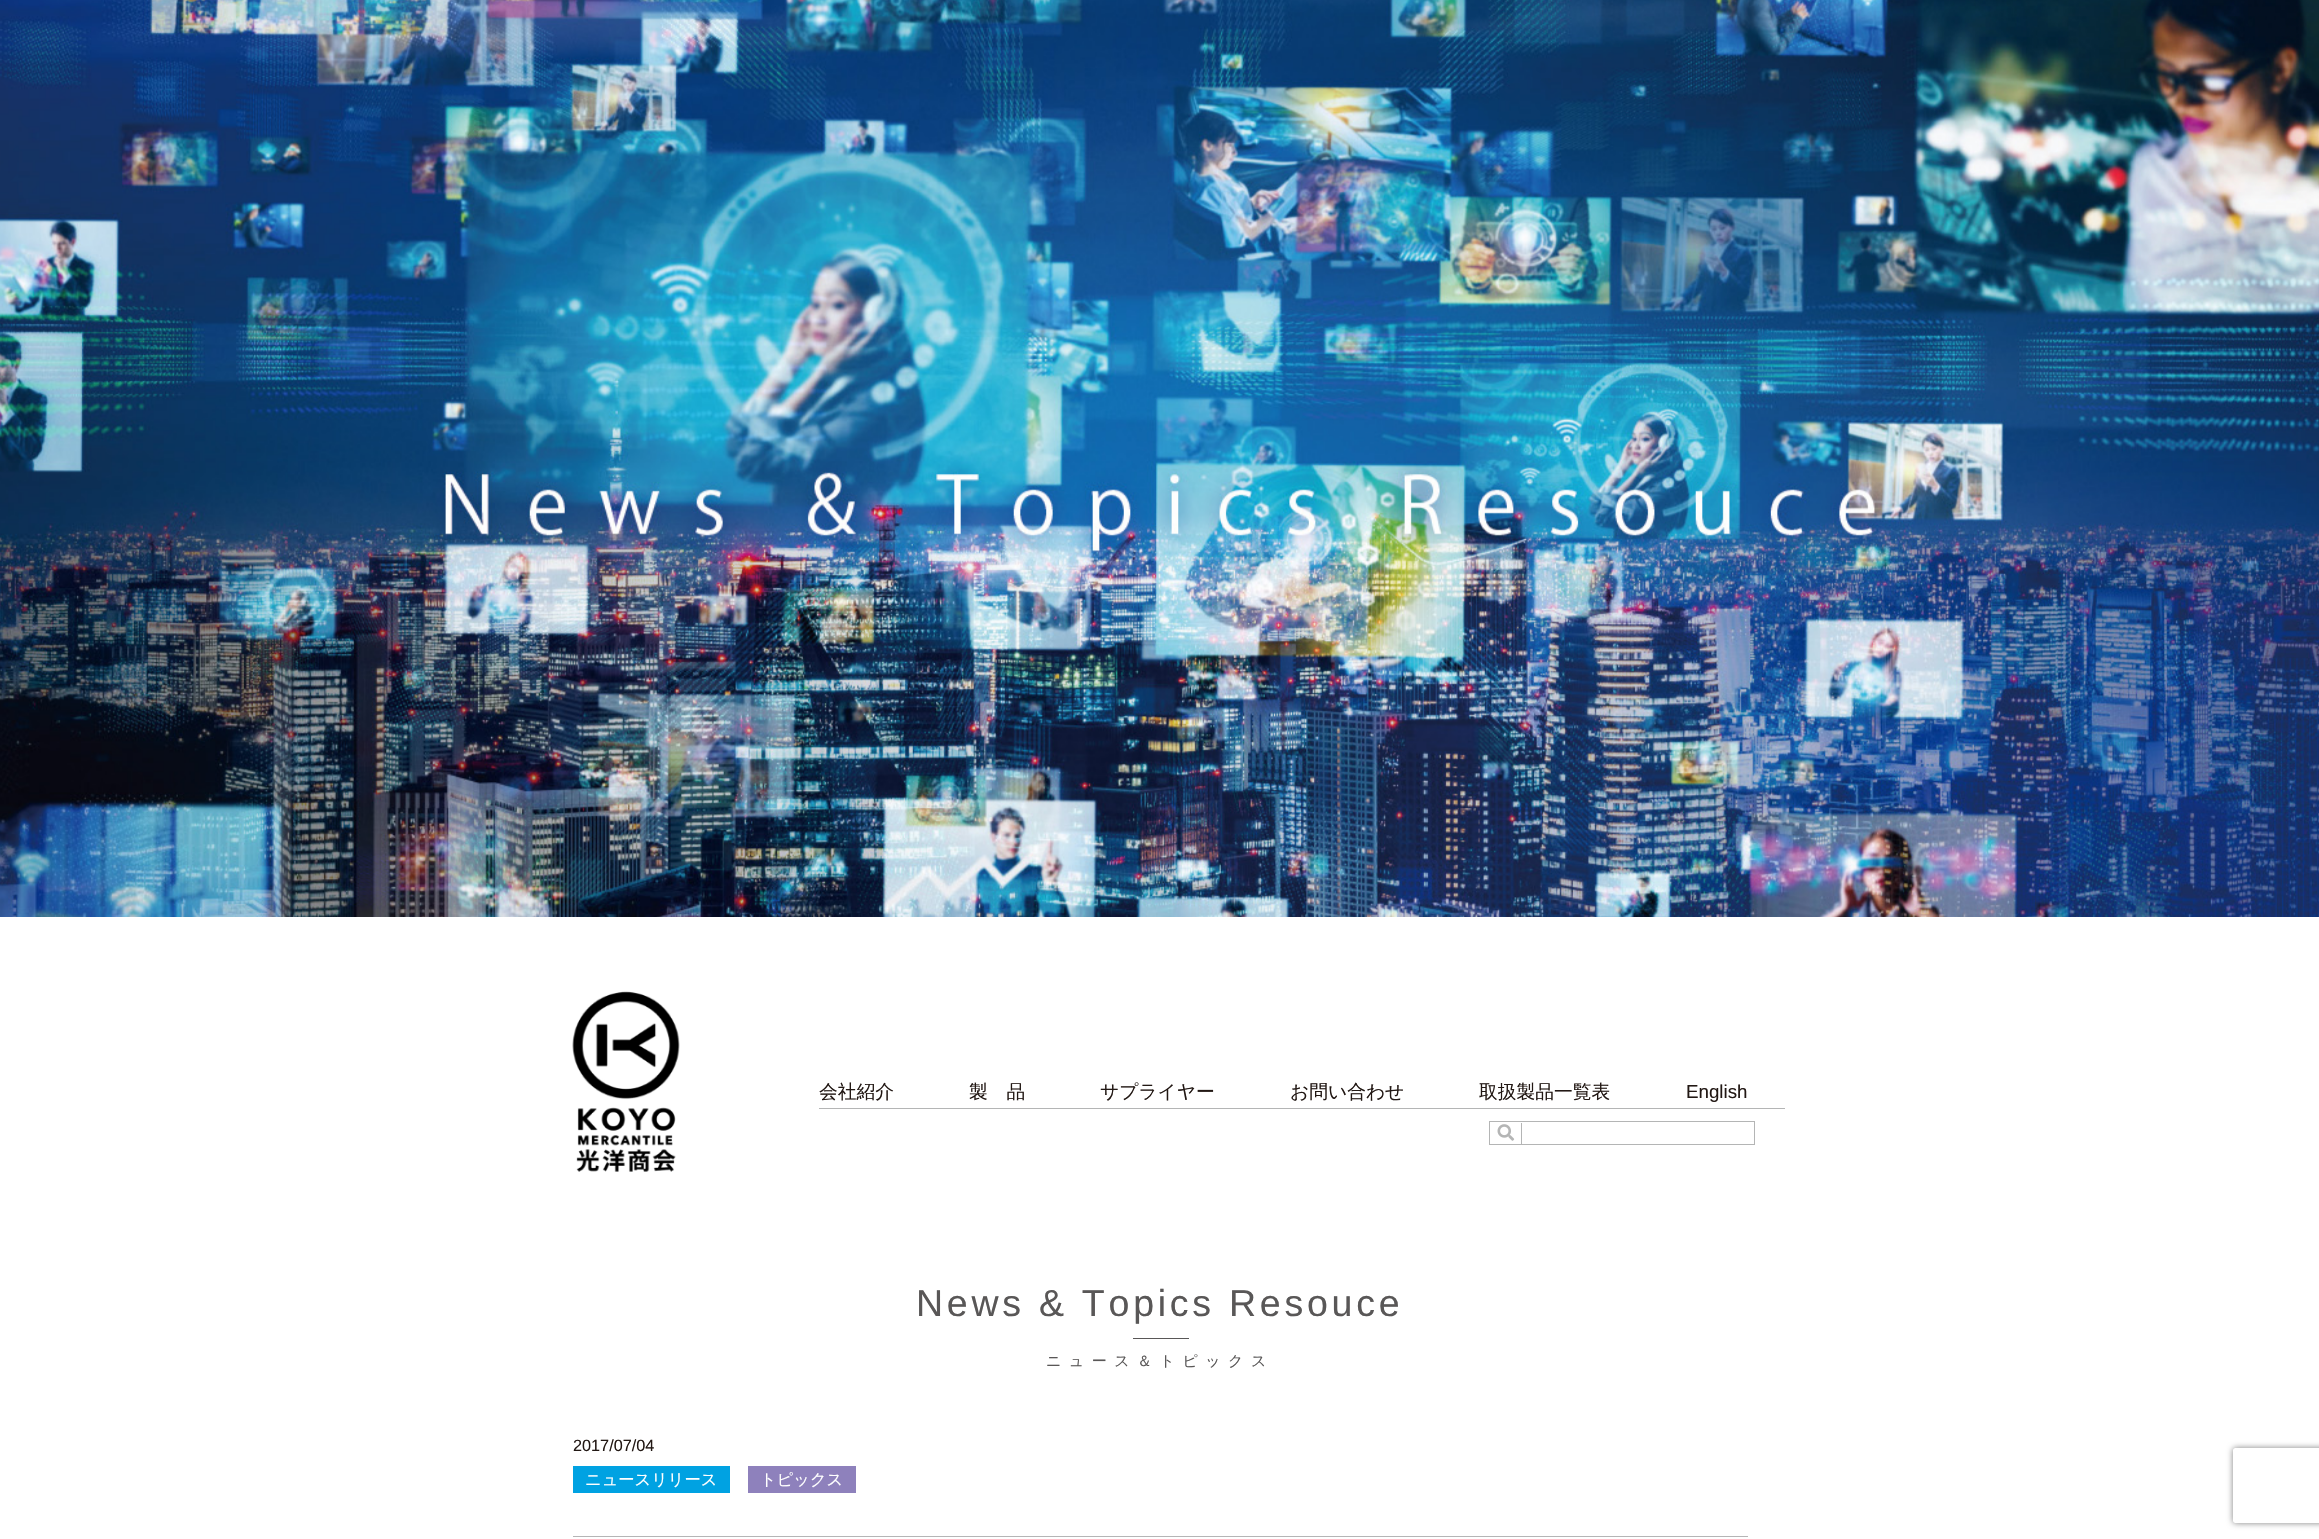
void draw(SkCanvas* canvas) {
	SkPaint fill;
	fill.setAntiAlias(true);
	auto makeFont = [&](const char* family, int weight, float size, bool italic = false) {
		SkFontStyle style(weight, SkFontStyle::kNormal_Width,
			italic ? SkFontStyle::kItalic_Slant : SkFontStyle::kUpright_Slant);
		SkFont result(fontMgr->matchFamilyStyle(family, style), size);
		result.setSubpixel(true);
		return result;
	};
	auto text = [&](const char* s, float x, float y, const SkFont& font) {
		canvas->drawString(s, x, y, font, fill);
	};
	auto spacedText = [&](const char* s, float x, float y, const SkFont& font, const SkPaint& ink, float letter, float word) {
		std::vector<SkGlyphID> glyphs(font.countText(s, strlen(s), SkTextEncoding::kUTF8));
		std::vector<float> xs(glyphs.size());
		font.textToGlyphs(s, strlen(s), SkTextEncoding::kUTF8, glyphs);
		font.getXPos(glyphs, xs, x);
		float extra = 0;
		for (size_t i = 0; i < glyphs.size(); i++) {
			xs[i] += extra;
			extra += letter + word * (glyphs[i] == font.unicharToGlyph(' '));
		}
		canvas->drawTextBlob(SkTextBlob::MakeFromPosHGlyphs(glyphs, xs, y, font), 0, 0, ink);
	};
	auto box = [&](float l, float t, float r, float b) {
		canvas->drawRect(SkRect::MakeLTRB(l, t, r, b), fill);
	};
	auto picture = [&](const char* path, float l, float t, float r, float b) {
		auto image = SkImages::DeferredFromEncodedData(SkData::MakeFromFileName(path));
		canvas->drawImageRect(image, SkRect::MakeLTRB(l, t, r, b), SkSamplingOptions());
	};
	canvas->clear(0xFFFFFFFF);
	picture("image0.png", 0, 0, 2319, 917);
	picture("image1.png", 572, 991, 680, 1172);
	fill.setColor(0xFFB4B5B5);
	box(819, 1108, 1785, 1109);
	fill.setStyle(SkPaint::kStroke_Style);
	fill.setStrokeWidth(1);
	canvas->drawRect(SkRect::MakeLTRB(1489.5f, 1121.5f, 1754.5f, 1144.5f), fill);
	fill.setStyle(SkPaint::kFill_Style);
	box(1521, 1123, 1522, 1144);
	picture("image2.png", 1497, 1124, 1515, 1141);
	fill.setColor(0xFF595757);
	box(1133, 1338, 1189, 1339);
	fill.setColor(0xFF00A2E2);
	box(573, 1466, 730, 1493);
	fill.setColor(0xFF8E81BC);
	box(748, 1466, 856, 1493);
	fill.setColor(0xFFB5B5B6);
	box(573, 1536, 1748, 1537);
	canvas->save();
	canvas->clipPath(SkPathBuilder(SkPathFillType::kEvenOdd).moveTo(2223, 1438).lineTo(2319, 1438).lineTo(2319, 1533).lineTo(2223, 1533).close().moveTo(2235.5f, 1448).lineTo(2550.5f, 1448).cubicTo(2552, 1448, 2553, 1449, 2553, 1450.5f).lineTo(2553, 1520.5f).cubicTo(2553, 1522, 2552, 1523, 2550.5f, 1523).lineTo(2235.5f, 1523).cubicTo(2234, 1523, 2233, 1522, 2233, 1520.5f).lineTo(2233, 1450.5f).cubicTo(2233, 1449, 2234, 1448, 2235.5f, 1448).close().detach(), true);
	fill.setColor(0xFF808080);
	fill.setMaskFilter(SkMaskFilter::MakeBlur(kNormal_SkBlurStyle, 3));
	canvas->drawRoundRect(SkRect::MakeLTRB(2233, 1448, 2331, 1523), 2.5f, 2.5f, fill);
	fill.setMaskFilter(nullptr);
	canvas->restore();
	auto font1 = makeFont("WenQuanYi Zen Hei", 500, 18.75f);
	fill.setColor(0xFF221814);
	text("会社紹介", 819, 1098, font1);
	text("製　品", 969, 1098, font1);
	text("サプライヤー", 1100, 1098, font1);
	text("お問い合わせ", 1290, 1098, font1);
	text("取扱製品一覧表", 1479, 1098, font1);
	auto font2 = makeFont("Liberation Sans", 400, 18.75f);
	text("English", 1686, 1098, font2);
	auto font3 = makeFont("Liberation Sans", 400, 37.5f);
	fill.setColor(0xFF595757);
	spacedText("News & Topics Resouce", 916, 1316, font3, fill, 3.75f, 0);
	auto font4 = makeFont("WenQuanYi Zen Hei", 500, 15);
	spacedText("ニュース＆トピックス", 1046, 1366, font4, fill, 7.5f, 0);
	auto font5 = makeFont("Liberation Sans", 400, 16.25f);
	fill.setColor(0xFF221814);
	text("2017/07/04", 573, 1451, font5);
	auto font6 = makeFont("WenQuanYi Zen Hei", 500, 16.25f);
	fill.setColor(0xFFFFFFFF);
	text("ニュースリリース", 585, 1485, font6);
	text("トピックス", 760, 1485, font6);
}
